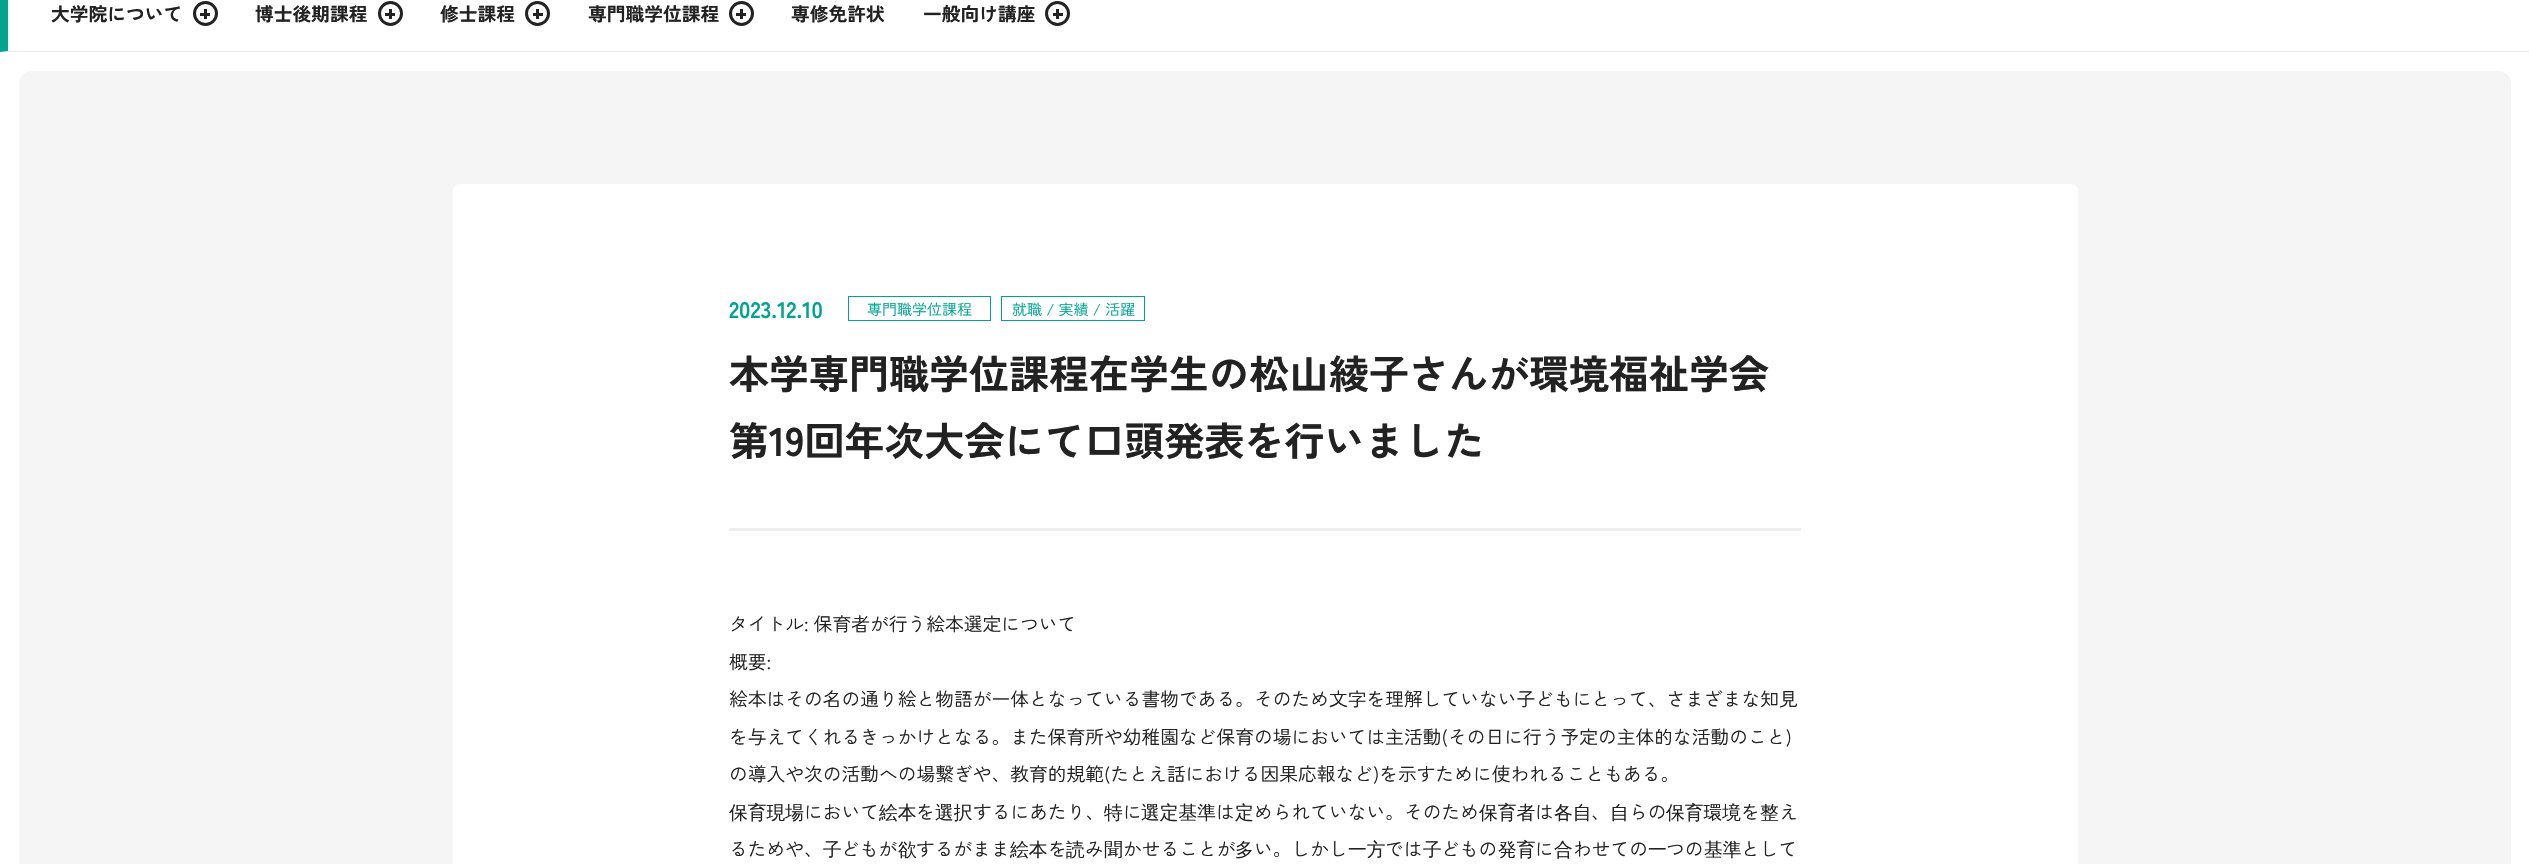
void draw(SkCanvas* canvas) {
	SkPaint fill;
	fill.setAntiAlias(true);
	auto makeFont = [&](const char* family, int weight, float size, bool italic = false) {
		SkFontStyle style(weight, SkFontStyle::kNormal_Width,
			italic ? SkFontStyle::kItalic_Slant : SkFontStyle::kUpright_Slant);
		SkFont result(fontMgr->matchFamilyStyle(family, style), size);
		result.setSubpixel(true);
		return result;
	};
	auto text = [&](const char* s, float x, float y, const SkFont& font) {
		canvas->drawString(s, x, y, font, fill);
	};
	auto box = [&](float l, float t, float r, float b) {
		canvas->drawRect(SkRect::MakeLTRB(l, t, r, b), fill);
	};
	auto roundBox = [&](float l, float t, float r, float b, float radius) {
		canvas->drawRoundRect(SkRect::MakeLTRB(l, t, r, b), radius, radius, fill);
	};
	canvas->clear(0xFFFFFFFF);
	fill.setColor(0xFFEEEEEE);
	canvas->drawPath(SkPathBuilder().moveTo(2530, 52).lineTo(0, 52).lineTo(8, 51).lineTo(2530, 51).close().detach(), fill);
	fill.setColor(0xFF00A491);
	canvas->drawPath(SkPathBuilder().moveTo(0, 52).lineTo(0, -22).lineTo(8, -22).lineTo(8, 51).close().detach(), fill);
	fill.setStyle(SkPaint::kStroke_Style);
	fill.setStrokeWidth(3);
	fill.setColor(0xFF222222);
	canvas->drawCircle(205.5f, 13.5f, 11, fill);
	fill.setStyle(SkPaint::kFill_Style);
	box(204, 9, 207, 19);
	box(200, 13, 210, 16);
	fill.setStyle(SkPaint::kStroke_Style);
	canvas->drawCircle(390.5f, 13.5f, 11, fill);
	fill.setStyle(SkPaint::kFill_Style);
	box(389, 9, 392, 19);
	box(385, 13, 395, 16);
	fill.setStyle(SkPaint::kStroke_Style);
	canvas->drawCircle(537.5f, 13.5f, 11, fill);
	fill.setStyle(SkPaint::kFill_Style);
	box(536, 9, 539, 19);
	box(533, 13, 543, 16);
	fill.setStyle(SkPaint::kStroke_Style);
	canvas->drawCircle(741.5f, 13.5f, 11, fill);
	fill.setStyle(SkPaint::kFill_Style);
	box(740, 9, 743, 19);
	box(736, 13, 746, 16);
	fill.setStyle(SkPaint::kStroke_Style);
	canvas->drawCircle(1057.5f, 13.5f, 11, fill);
	fill.setStyle(SkPaint::kFill_Style);
	box(1056, 9, 1059, 19);
	box(1053, 13, 1063, 16);
	fill.setColor(0xFFF5F5F5);
	roundBox(19, 71, 2511, 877, 13);
	fill.setColor(0xFFFFFFFF);
	roundBox(453, 184, 2078, 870, 6);
	fill.setColor(0xFFEEEEEE);
	box(729, 528, 1801, 531);
	fill.setStyle(SkPaint::kStroke_Style);
	fill.setStrokeWidth(1);
	fill.setColor(0xFF00A491);
	canvas->drawRect(SkRect::MakeLTRB(848.5f, 296.5f, 990.5f, 320.5f), fill);
	canvas->drawRect(SkRect::MakeLTRB(1001.5f, 296.5f, 1144.5f, 320.5f), fill);
	auto font1 = makeFont("Zen Kaku Gothic New", 700, 18.75f);
	fill.setStyle(SkPaint::kFill_Style);
	fill.setColor(0xFF222222);
	text("大学院について", 51, 21, font1);
	text("博士後期課程", 255, 21, font1);
	text("修士課程", 440, 21, font1);
	text("専門職学位課程", 588, 21, font1);
	text("専修免許状", 791, 21, font1);
	text("一般向け講座", 923, 21, font1);
	auto font2 = makeFont("Zen Kaku Gothic New", 700, 22.5f);
	fill.setColor(0xFF00A491);
	text("2023.12.10", 729, 318, font2);
	auto font3 = makeFont("Zen Kaku Gothic New", 400, 15);
	text("専門職学位課程", 867, 315, font3);
	text("就職 / 実績 / 活躍", 1012, 315, font3);
	auto font4 = makeFont("Zen Kaku Gothic New", 700, 40);
	fill.setColor(0xFF222222);
	text("本学専門職学位課程在学生の松山綾子さんが環境福祉学会", 729, 389, font4);
	text("第19回年次大会にて口頭発表を行いました", 729, 456, font4);
	auto font5 = makeFont("Zen Kaku Gothic New", 400, 18.75f);
	text("タイトル: 保育者が行う絵本選定について", 729, 631, font5);
	text("概要:", 729, 669, font5);
	text("絵本はその名の通り絵と物語が一体となっている書物である。そのため文字を理解していない子どもにとって、さまざまな知見", 729, 706, font5);
	text("を与えてくれるきっかけとなる。また保育所や幼稚園など保育の場においては主活動(その日に行う予定の主体的な活動のこと)", 729, 744, font5);
	text("の導入や次の活動への場繋ぎや、教育的規範(たとえ話における因果応報など)を示すために使われることもある。", 729, 781, font5);
	auto font6 = makeFont("WenQuanYi Zen Hei", 500, 18.75f);
	text("保育現場", 729, 819, font6);
	text("において", 804, 819, font5);
	text("絵本", 879, 819, font6);
	text("を", 916, 819, font5);
	text("選択", 935, 819, font6);
	text("するにあたり、", 973, 819, font5);
	text("特", 1104, 819, font6);
	text("に", 1123, 819, font5);
	text("選定基準", 1141, 819, font6);
	text("は", 1216, 819, font5);
	text("定", 1235, 819, font6);
	text("められていない。そのため", 1254, 819, font5);
	text("保育者", 1479, 819, font6);
	text("は", 1535, 819, font5);
	text("各自", 1554, 819, font6);
	text("、", 1591, 819, font5);
	text("自", 1610, 819, font6);
	text("らの", 1629, 819, font5);
	text("保育環境", 1666, 819, font6);
	text("を", 1741, 819, font5);
	text("整", 1760, 819, font6);
	text("え", 1779, 819, font5);
	text("るためや、", 729, 856, font5);
	text("子", 823, 856, font6);
	text("どもが", 841, 856, font5);
	text("欲", 898, 856, font6);
	text("するがまま", 916, 856, font5);
	text("絵本", 1010, 856, font6);
	text("を", 1048, 856, font5);
	text("読", 1066, 856, font6);
	text("み", 1085, 856, font5);
	text("聞", 1104, 856, font6);
	text("かせることが", 1123, 856, font5);
	text("多", 1235, 856, font6);
	text("い。しかし", 1254, 856, font5);
	text("一方", 1348, 856, font6);
	text("では", 1385, 856, font5);
	text("子", 1423, 856, font6);
	text("どもの", 1441, 856, font5);
	text("発育", 1498, 856, font6);
	text("に", 1535, 856, font5);
	text("合", 1554, 856, font6);
	text("わせての", 1573, 856, font5);
	text("一", 1648, 856, font6);
	text("つの", 1666, 856, font5);
	text("基準", 1704, 856, font6);
	text("として", 1741, 856, font5);
}
